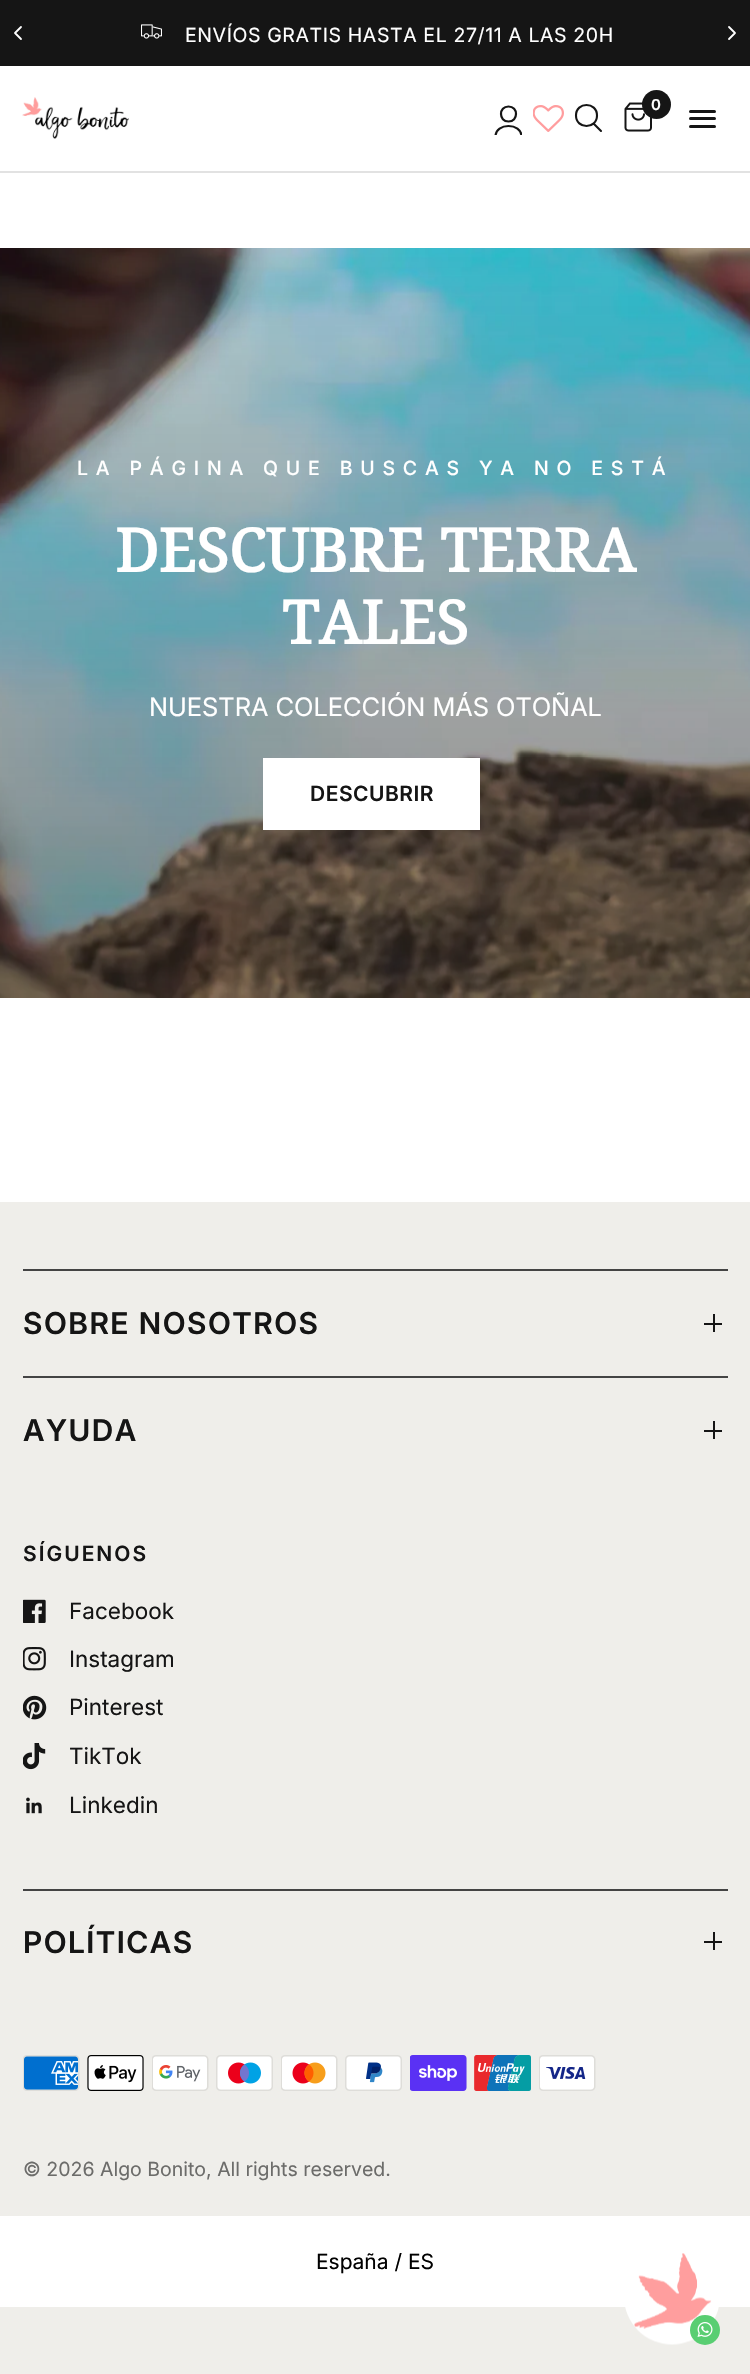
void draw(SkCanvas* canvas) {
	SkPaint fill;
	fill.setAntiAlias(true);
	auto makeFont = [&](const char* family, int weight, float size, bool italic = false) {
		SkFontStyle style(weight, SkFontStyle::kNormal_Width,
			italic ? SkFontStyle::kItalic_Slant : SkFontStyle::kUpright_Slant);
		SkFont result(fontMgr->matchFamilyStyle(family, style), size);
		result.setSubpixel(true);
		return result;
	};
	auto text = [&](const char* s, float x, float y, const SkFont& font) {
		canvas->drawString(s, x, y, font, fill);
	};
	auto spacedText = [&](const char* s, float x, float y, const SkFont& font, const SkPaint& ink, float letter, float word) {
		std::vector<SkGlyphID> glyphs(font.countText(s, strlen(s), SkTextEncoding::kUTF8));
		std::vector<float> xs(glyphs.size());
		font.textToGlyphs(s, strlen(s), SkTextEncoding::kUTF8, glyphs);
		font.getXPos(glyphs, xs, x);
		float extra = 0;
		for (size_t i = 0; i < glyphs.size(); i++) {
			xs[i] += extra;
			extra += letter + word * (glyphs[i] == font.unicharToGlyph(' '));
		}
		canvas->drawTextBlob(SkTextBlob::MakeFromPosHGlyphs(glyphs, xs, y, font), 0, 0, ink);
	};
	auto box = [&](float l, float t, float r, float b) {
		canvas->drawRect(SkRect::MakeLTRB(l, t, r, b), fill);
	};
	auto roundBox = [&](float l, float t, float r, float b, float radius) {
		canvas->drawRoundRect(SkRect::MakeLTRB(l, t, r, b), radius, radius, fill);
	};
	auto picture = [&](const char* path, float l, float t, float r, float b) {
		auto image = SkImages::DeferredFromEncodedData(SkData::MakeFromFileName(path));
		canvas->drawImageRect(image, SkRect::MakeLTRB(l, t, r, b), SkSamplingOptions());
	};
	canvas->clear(0xFFFFFFFF);
	fill.setColor(0xFF151515);
	box(0, 0, 750, 66);
	fill.setStyle(SkPaint::kStroke_Style);
	fill.setStrokeWidth(1.8f);
	fill.setStrokeCap(SkPaint::kRound_Cap);
	fill.setStrokeJoin(SkPaint::kRound_Join);
	fill.setColor(0xFFFFFFFF);
	canvas->drawPath(SkPathBuilder().moveTo(21, 27).lineTo(15, 33).lineTo(21, 39).detach(), fill);
	picture("image0.png", 141, 24, 162, 39);
	canvas->drawPath(SkPathBuilder().moveTo(729, 27).lineTo(735, 33).lineTo(729, 39).detach(), fill);
	fill.setStyle(SkPaint::kFill_Style);
	fill.setColor(0xFFE2E2E2);
	box(0, 171, 750, 173);
	picture("image1.png", 22, 97, 129, 139);
	fill.setStyle(SkPaint::kStroke_Style);
	fill.setStrokeWidth(2.2f);
	fill.setColor(0xFF151515);
	canvas->drawPath(SkPathBuilder().moveTo(508.5f, 121.5f).cubicTo(518.5f, 121.5f, 518.5f, 106.5f, 508.5f, 106.5f).cubicTo(498.5f, 106.5f, 498.5f, 121.5f, 508.5f, 121.5f).close().detach(), fill);
	canvas->save();
	canvas->clipRect(SkRect::MakeLTRB(491, 104, 522, 135));
	canvas->drawPath(SkPathBuilder().moveTo(521.5f, 136.5f).cubicTo(521.5f, 122.5f, 495.5f, 122.5f, 495.5f, 136.5f).detach(), fill);
	canvas->restore();
	picture("image2.png", 533, 105, 564, 132);
	fill.setStrokeWidth(2.1f);
	canvas->drawPath(SkPathBuilder().moveTo(594, 124).lineTo(601, 131).moveTo(597, 115.5f).cubicTo(597, 129.5f, 576, 129.5f, 576, 115.5f).cubicTo(576, 101.5f, 597, 101.5f, 597, 115.5f).close().detach(), fill);
	picture("image3.png", 624, 102, 652, 132);
	fill.setStyle(SkPaint::kFill_Style);
	canvas->drawCircle(656.5f, 104.5f, 14.5f, fill);
	roundBox(689, 110, 716, 113, 1.5f);
	roundBox(689, 117, 716, 120, 1.5f);
	roundBox(689, 125, 716, 128, 1.5f);
	picture("image4.png", 0, 248, 750, 998);
	fill.setColor(0xFFFFFFFF);
	box(263, 758, 480, 830);
	fill.setColor(0xFFEFEEEA);
	box(0, 1202, 750, 2374);
	fill.setColor(0xFF444444);
	box(23, 1269, 728, 1271);
	fill.setColor(0xFF151515);
	box(713, 1314, 715, 1332);
	box(704, 1323, 722, 1325);
	fill.setColor(0xFF444444);
	box(23, 1376, 728, 1378);
	fill.setColor(0xFF151515);
	box(713, 1421, 715, 1439);
	box(704, 1430, 722, 1432);
	picture("image5.png", 23, 1599, 46, 1623);
	picture("image6.png", 23, 1647, 46, 1671);
	picture("image7.png", 23, 1695, 47, 1720);
	picture("image8.png", 23, 1743, 46, 1770);
	picture("image9.png", 26, 1797, 42, 1814);
	fill.setColor(0xFF444444);
	box(23, 1889, 728, 1891);
	fill.setColor(0xFF151515);
	box(713, 1932, 715, 1950);
	box(704, 1941, 722, 1943);
	picture("image10.png", 23, 2055, 80, 2091);
	picture("image11.png", 87, 2055, 144, 2091);
	picture("image12.png", 152, 2055, 209, 2091);
	picture("image13.png", 216, 2055, 273, 2091);
	picture("image14.png", 281, 2055, 338, 2091);
	picture("image15.png", 345, 2055, 402, 2091);
	picture("image16.png", 410, 2055, 467, 2091);
	picture("image17.png", 474, 2055, 531, 2091);
	picture("image18.png", 539, 2055, 596, 2091);
	fill.setColor(0xFFFFFFFF);
	box(0, 2216, 750, 2307);
	picture("image19.png", 625, 2253, 719, 2345);
	fill.setColor(0xFF59CE72);
	canvas->drawCircle(705, 2330, 15, fill);
	picture("image20.png", 697, 2322, 713, 2337);
	auto font1 = makeFont("Inter", 400, 19.5f);
	fill.setColor(0xFFFFFFFF);
	spacedText("ENVÍOS GRATIS HASTA EL 27/11 A LAS 20H", 185, 42, font1, fill, 0.6f, 0);
	auto font2 = makeFont("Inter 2", 600, 15);
	text("0", 651, 110, font2);
	auto font3 = makeFont("Inter", 500, 19.5f);
	spacedText("LA PÁGINA QUE BUSCAS YA NO ESTÁ", 77, 475, font3, fill, 7.8f, -1);
	auto font4 = makeFont("Noto Serif", 700, 60);
	text("DESCUBRE TERRA", 115, 572, font4);
	text("TALES", 282, 644, font4);
	auto font5 = makeFont("Inter 2", 400, 25.5f);
	text("NUESTRA COLECCIÓN MÁS OTOÑAL", 149, 716, font5);
	auto font6 = makeFont("Inter 2", 600, 21);
	fill.setColor(0xFF151515);
	spacedText("DESCUBRIR", 310, 801, font6, fill, 0.5f, 0);
	auto font7 = makeFont("Inter", 600, 30);
	spacedText("SOBRE NOSOTROS", 23, 1334, font7, fill, 1.5f, 0);
	spacedText("AYUDA", 23, 1441, font7, fill, 1.5f, 0);
	spacedText("SÍGUENOS", 23, 1561, font6, fill, 2, 0);
	auto font8 = makeFont("Inter", 400, 22.5f);
	text("Facebook", 69, 1619, font8);
	text("Instagram", 69, 1667, font8);
	text("Pinterest", 69, 1715, font8);
	text("TikTok", 69, 1764, font8);
	text("Linkedin", 69, 1813, font8);
	spacedText("POLÍTICAS", 23, 1953, font7, fill, 1.5f, 0);
	fill.setColor(0xFF6C6C6A);
	text("© 2026 Algo Bonito, All rights reserved.", 23, 2176, font1);
	auto font9 = makeFont("Inter", 400, 21);
	fill.setColor(0xFF000000);
	text("España / ES", 316, 2269, font9);
}
